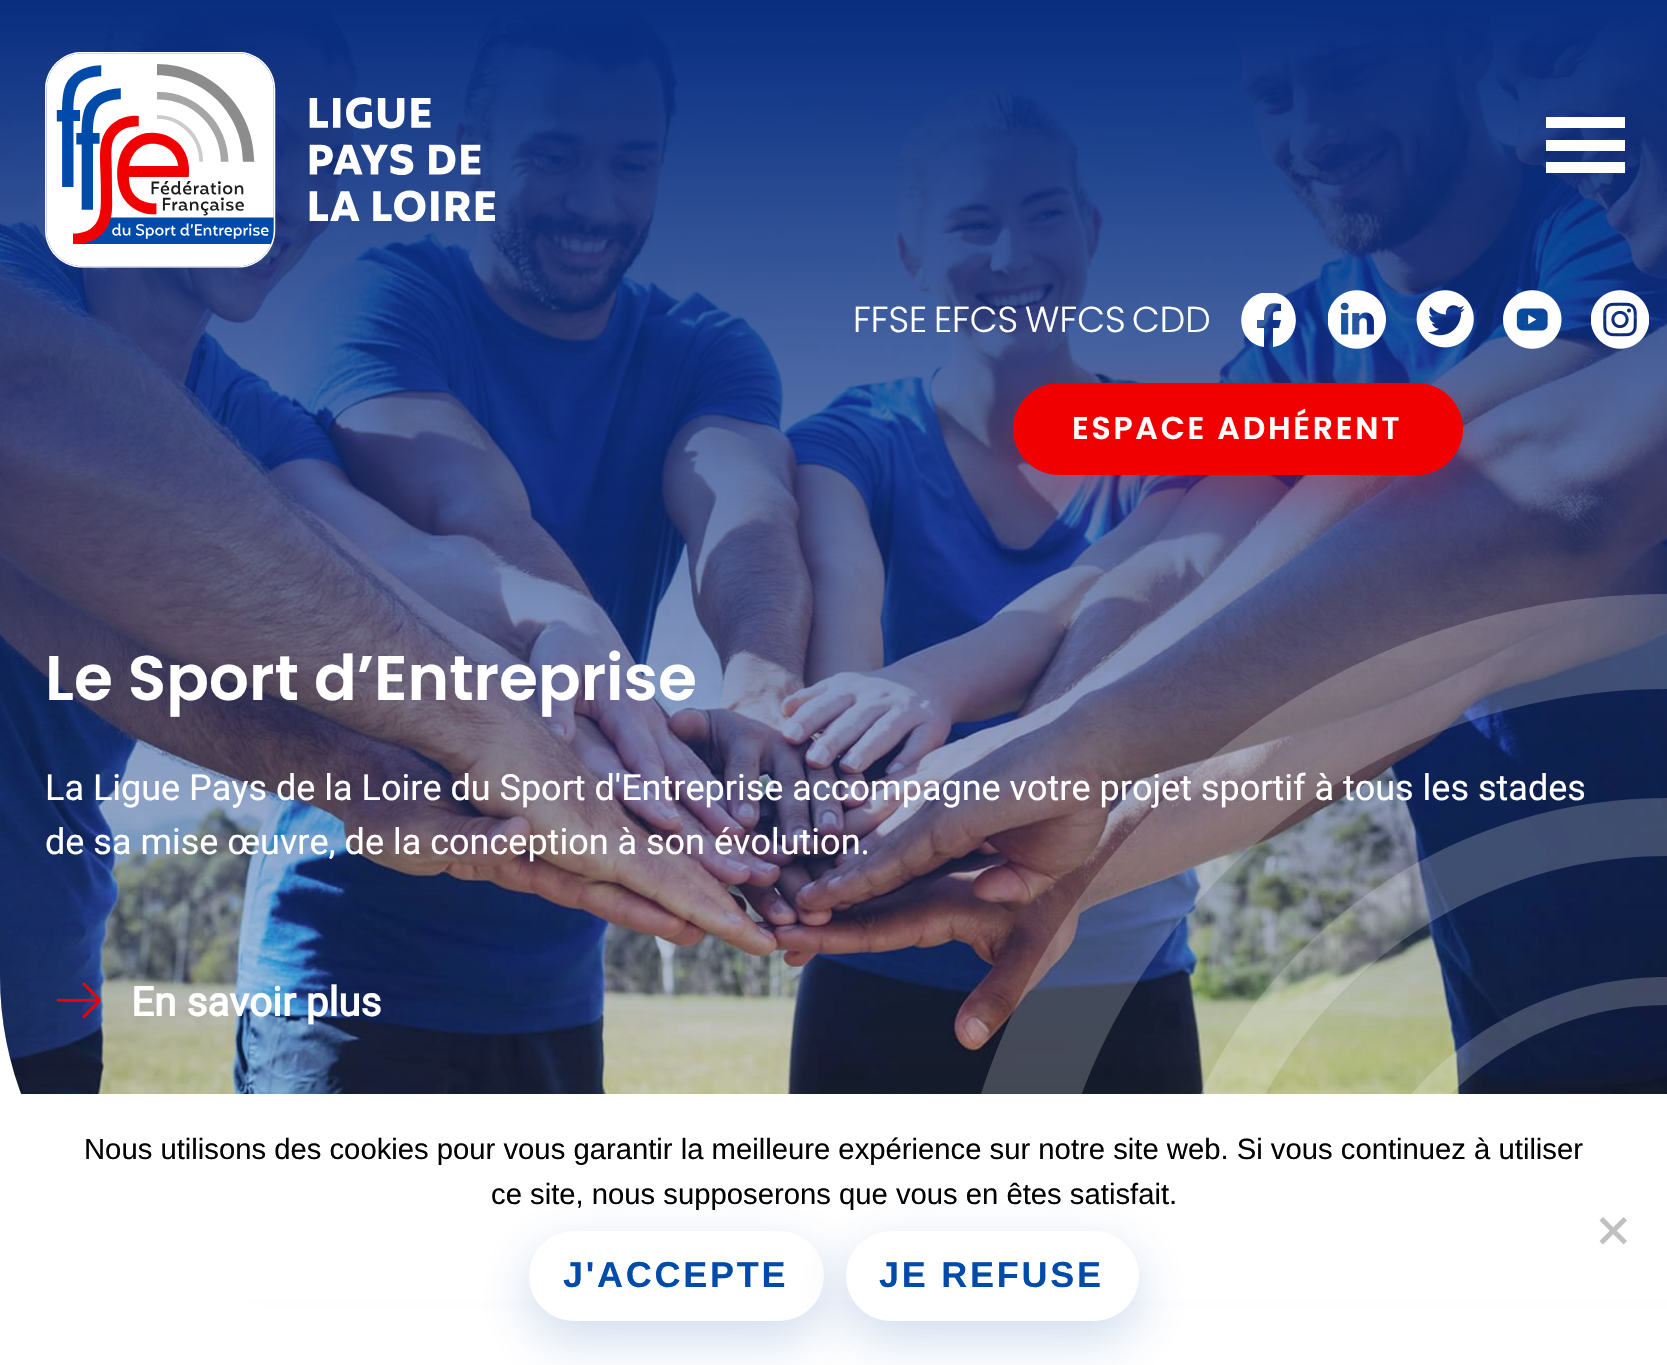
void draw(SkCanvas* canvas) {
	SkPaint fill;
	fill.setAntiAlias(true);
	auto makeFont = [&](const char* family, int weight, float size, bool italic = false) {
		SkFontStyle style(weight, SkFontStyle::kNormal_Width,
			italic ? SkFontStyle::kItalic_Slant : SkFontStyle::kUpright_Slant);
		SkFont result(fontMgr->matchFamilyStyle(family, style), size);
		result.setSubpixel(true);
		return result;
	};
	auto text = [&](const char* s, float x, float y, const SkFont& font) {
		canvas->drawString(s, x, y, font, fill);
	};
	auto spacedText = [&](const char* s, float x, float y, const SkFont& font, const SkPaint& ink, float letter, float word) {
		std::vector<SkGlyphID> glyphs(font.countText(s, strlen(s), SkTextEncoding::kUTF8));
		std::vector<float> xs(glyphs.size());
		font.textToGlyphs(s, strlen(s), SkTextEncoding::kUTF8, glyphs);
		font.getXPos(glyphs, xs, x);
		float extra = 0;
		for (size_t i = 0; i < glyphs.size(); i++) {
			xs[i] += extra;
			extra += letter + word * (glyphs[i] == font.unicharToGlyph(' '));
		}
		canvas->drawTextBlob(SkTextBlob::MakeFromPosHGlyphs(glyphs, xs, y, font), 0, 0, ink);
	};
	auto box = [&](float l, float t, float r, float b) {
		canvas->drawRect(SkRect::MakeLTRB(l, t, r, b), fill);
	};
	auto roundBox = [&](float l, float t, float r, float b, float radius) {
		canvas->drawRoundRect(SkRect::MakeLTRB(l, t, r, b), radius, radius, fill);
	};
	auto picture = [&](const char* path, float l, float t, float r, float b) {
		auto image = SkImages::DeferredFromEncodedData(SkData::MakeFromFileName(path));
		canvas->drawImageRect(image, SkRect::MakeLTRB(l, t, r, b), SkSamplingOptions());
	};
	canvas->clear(0xFFFFFFFF);
	picture("image5.png", 0, 8, 1667, 1094);
	{
		const SkColor colors[] = {0xFF082D80, 0x00082D80};
		const float stops[] = {0, 1};
		const SkPoint ends[] = {{834, 0}, {834, 1314}};
		fill.setShader(SkGradientShader::MakeLinear(ends, colors, stops, 2, SkTileMode::kClamp));
		fill.setAlpha(255);
	}
	canvas->drawPath(SkPathBuilder().moveTo(0, 0).lineTo(1667, 0).lineTo(1667, 1314).lineTo(338, 1314).cubicTo(151.5f, 1314, 0, 1162.5f, 0, 976).close().detach(), fill);
	picture("image0.png", 45, 52, 495, 268);
	fill.setShader(nullptr);
	fill.setColor(0xFFFFFFFF);
	box(1546, 140, 1625, 151);
	box(1546, 117, 1625, 128);
	box(1546, 162, 1625, 173);
	fill.setColor(0x45F00000);
	fill.setMaskFilter(SkMaskFilter::MakeBlur(kNormal_SkBlurStyle, 27));
	canvas->drawRoundRect(SkRect::MakeLTRB(1013, 401, 1463, 493), 46, 46, fill);
	fill.setMaskFilter(nullptr);
	canvas->save();
	canvas->clipRect(SkRect::MakeLTRB(1240, 293, 1298, 349));
	fill.setColor(0xFFFFFFFF);
	canvas->drawPath(SkPathBuilder().moveTo(1269, 292).cubicTo(1235, 292, 1231, 342, 1264, 347).lineTo(1264, 328).lineTo(1257, 328).lineTo(1257, 320).lineTo(1264, 320).cubicTo(1264, 307, 1266, 301, 1281, 304).lineTo(1281, 311).cubicTo(1272, 311, 1273, 312, 1273, 320).lineTo(1281, 320).lineTo(1279, 328).lineTo(1273, 328).lineTo(1273, 347).cubicTo(1306, 342, 1302, 292, 1269, 292).detach(), fill);
	canvas->restore();
	picture("image1.png", 1328, 290, 1386, 349);
	picture("image2.png", 1416, 290, 1474, 348);
	picture("image3.png", 1503, 290, 1562, 349);
	picture("image4.png", 1591, 290, 1649, 349);
	fill.setColor(0xFFF00000);
	roundBox(1013, 383, 1463, 475, 46);
	picture("image6.png", 56, 982, 101, 1018);
	auto font1 = makeFont("Poppins", 300, 36);
	fill.setColor(0xFFFFFFFF);
	text("FFSE", 853, 332, font1);
	text("EFCS", 934, 332, font1);
	text("WFCS", 1025, 332, font1);
	text("CDD", 1132, 332, font1);
	auto font2 = makeFont("Poppins", 600, 31.5f);
	spacedText("ESPACE ADHÉRENT", 1072, 439, font2, fill, 2.75f, 0);
	auto font3 = makeFont("Poppins", 600, 63);
	text("Le Sport d’Entreprise", 45, 700, font3);
	auto font4 = makeFont("Roboto", 400, 36);
	text("La Ligue Pays de la Loire du Sport d'Entreprise accompagne votre projet sportif à tous les stades", 45, 800, font4);
	fill.setColor(0x33FFFFFF);
	canvas->drawPath(SkPathBuilder().moveTo(1209, 1314).lineTo(1151, 1314).cubicTo(1151, 1030, 1383, 798, 1667, 798).lineTo(1667, 856).cubicTo(1415, 856, 1209, 1062, 1209, 1314).close().detach(), fill);
	canvas->drawPath(SkPathBuilder().moveTo(1359, 1314).lineTo(1330, 1314).cubicTo(1330, 1128, 1481, 977, 1667, 977).lineTo(1667, 1005).cubicTo(1497, 1005, 1359, 1144, 1359, 1314).close().detach(), fill);
	canvas->drawPath(SkPathBuilder().moveTo(1667, 594).cubicTo(1270, 594, 947, 917, 947, 1314).lineTo(1042, 1314).cubicTo(1042, 969, 1323, 689, 1667, 689).close().detach(), fill);
	fill.setColor(0xFFFFFFFF);
	text("de sa mise œuvre, de la conception à son évolution.", 45, 854, font4);
	auto font5 = makeFont("Roboto", 700, 40.5f);
	text("En savoir plus", 131, 1016, font5);
	box(21, 1094, 1667, 1301);
	auto font6 = makeFont("Liberation Sans", 400, 29.25f);
	fill.setColor(0xFF020202);
	text("Nous utilisons des cookies pour vous garantir la meilleure expérience sur notre site web. Si vous continuez à utiliser", 84, 1159, font6);
	text("ce site, nous supposerons que vous en êtes satisfait.", 491, 1204, font6);
	fill.setColor(0xFFC0C0C0);
	canvas->drawPath(SkPathBuilder().moveTo(1623.5f, 1217).lineTo(1627, 1220.5f).lineTo(1603, 1244.5f).lineTo(1599.5f, 1241).close().detach(), fill);
	canvas->drawPath(SkPathBuilder().moveTo(1599.5f, 1220.5f).lineTo(1603, 1217).lineTo(1627, 1241).lineTo(1623.5f, 1244.5f).close().detach(), fill);
	fill.setColor(0x33044BAA);
	fill.setMaskFilter(SkMaskFilter::MakeBlur(kNormal_SkBlurStyle, 27));
	canvas->drawRoundRect(SkRect::MakeLTRB(529, 1249, 824, 1339), 45, 45, fill);
	fill.setMaskFilter(nullptr);
	fill.setColor(0xFFFFFFFF);
	roundBox(529, 1231, 824, 1321, 45);
	auto font7 = makeFont("Liberation Sans", 700, 36);
	fill.setColor(0xFF004BAA);
	spacedText("J'ACCEPTE", 563, 1287, font7, fill, 2.75f, 0);
	fill.setColor(0x33044BAA);
	fill.setMaskFilter(SkMaskFilter::MakeBlur(kNormal_SkBlurStyle, 27));
	canvas->drawRoundRect(SkRect::MakeLTRB(846, 1249, 1139, 1339), 45, 45, fill);
	fill.setMaskFilter(nullptr);
	fill.setColor(0xFFFFFFFF);
	roundBox(846, 1231, 1139, 1321, 45);
	fill.setColor(0xFF004BAA);
	spacedText("JE REFUSE", 879, 1287, font7, fill, 2.75f, 0);
}
